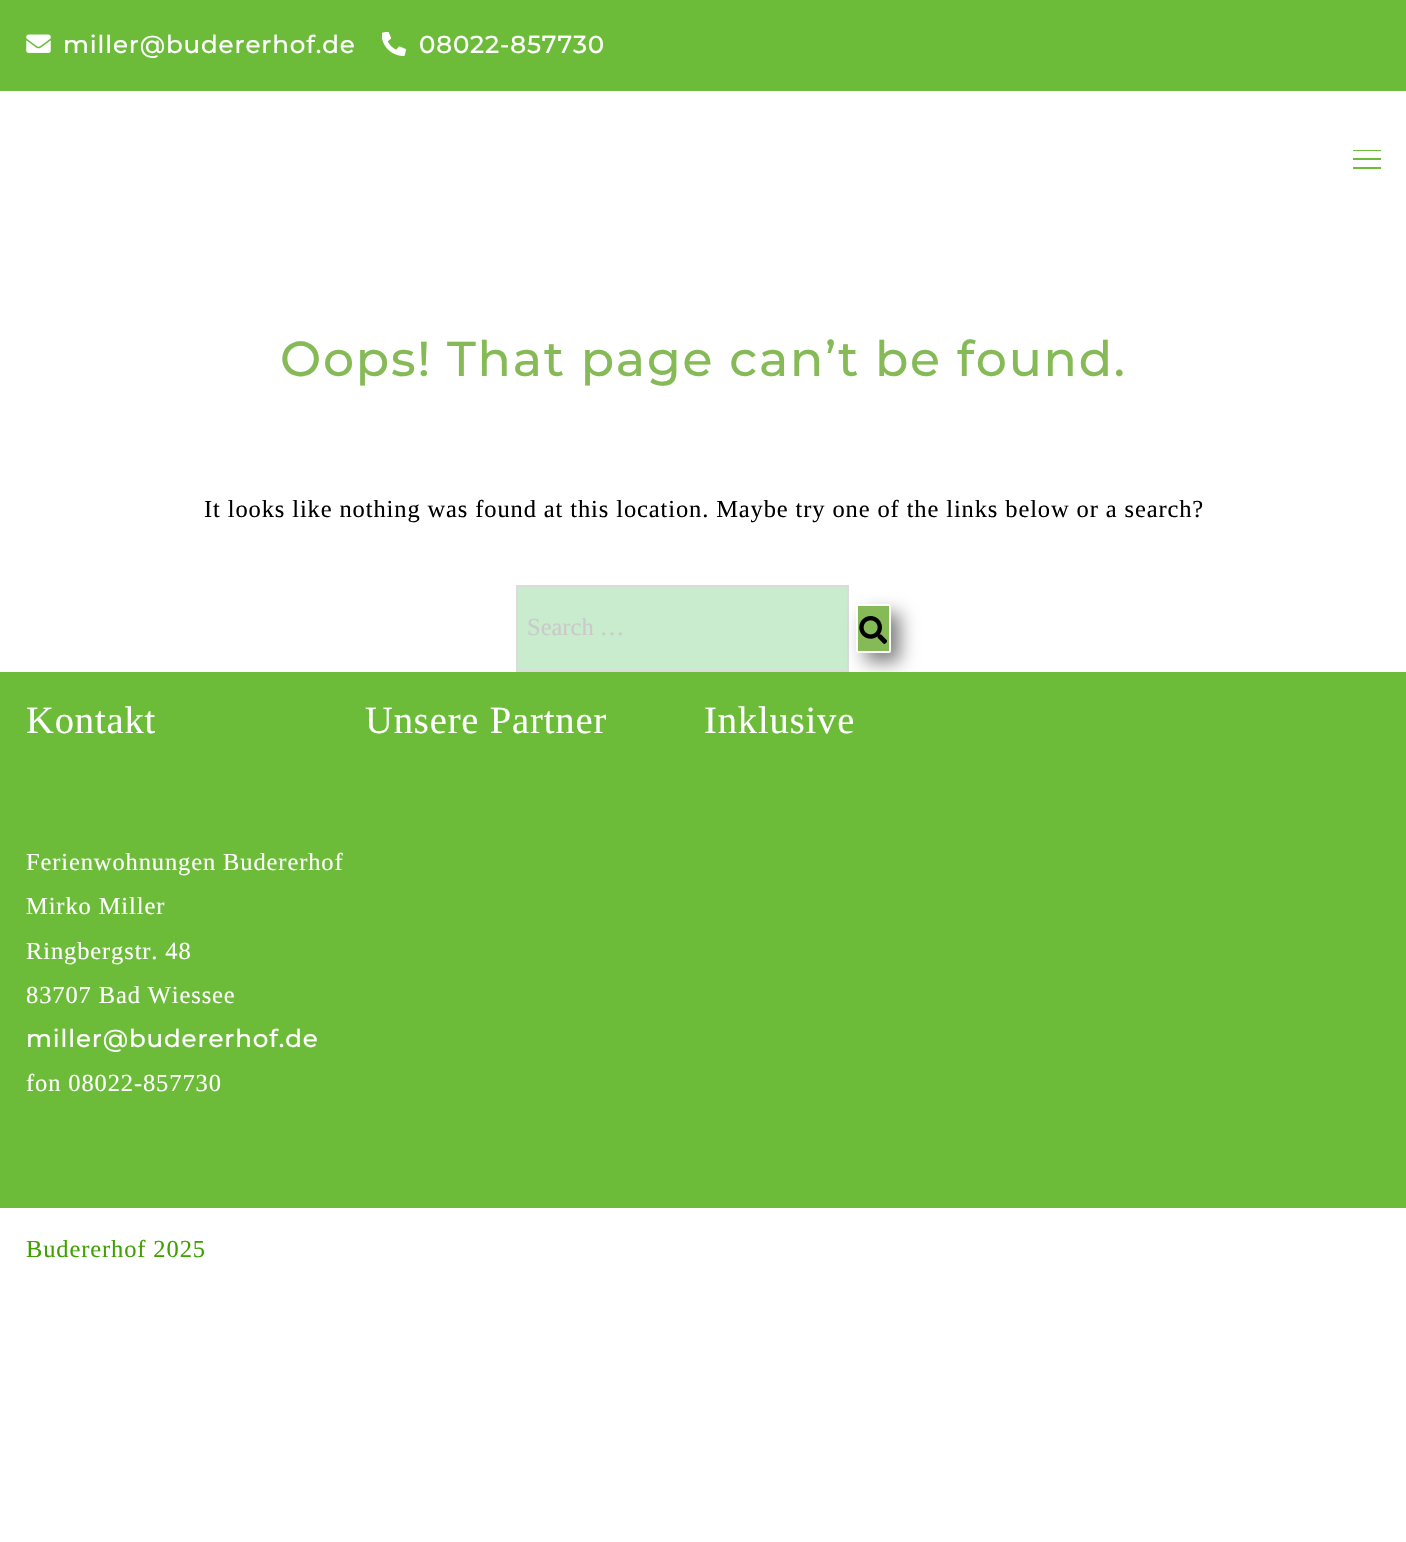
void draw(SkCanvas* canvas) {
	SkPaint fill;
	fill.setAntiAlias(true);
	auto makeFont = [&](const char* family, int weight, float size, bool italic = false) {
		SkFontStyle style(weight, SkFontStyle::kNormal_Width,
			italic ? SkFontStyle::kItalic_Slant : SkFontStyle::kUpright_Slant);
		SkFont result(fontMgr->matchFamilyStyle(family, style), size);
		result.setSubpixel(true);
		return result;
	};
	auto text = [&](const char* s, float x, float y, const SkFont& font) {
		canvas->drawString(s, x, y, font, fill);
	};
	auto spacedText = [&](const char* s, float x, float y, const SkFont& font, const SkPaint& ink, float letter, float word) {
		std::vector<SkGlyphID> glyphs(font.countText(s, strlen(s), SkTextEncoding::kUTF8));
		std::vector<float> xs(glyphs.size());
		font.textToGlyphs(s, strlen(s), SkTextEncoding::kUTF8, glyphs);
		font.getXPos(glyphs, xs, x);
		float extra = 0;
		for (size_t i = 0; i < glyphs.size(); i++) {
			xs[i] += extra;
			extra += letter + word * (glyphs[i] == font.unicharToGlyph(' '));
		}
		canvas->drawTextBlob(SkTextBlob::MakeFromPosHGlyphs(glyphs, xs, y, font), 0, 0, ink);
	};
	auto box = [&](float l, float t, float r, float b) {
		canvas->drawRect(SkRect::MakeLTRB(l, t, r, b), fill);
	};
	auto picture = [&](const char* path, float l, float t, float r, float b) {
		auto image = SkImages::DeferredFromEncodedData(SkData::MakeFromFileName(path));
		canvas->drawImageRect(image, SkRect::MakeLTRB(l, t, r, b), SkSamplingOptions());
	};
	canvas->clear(0xFFFFFFFF);
	fill.setColor(0xFF6CBC3A);
	box(0, 0, 1406, 91);
	picture("image0.png", 26, 34, 51, 53);
	picture("image1.png", 382, 32, 406, 56);
	box(1353, 150, 1381, 151);
	box(1353, 158, 1381, 160);
	box(1353, 167, 1381, 169);
	fill.setColor(0xFFC9EBCE);
	canvas->drawRect(SkRect::MakeLTRB(517, 586, 848, 671), fill);
	fill.setStyle(SkPaint::kStroke_Style);
	fill.setStrokeWidth(2);
	fill.setColor(0xFFDBDBDB);
	canvas->drawRect(SkRect::MakeLTRB(517, 586, 848, 671), fill);
	fill.setStyle(SkPaint::kFill_Style);
	fill.setColor(0xFF6CBC3A);
	box(0, 672, 1406, 1208);
	canvas->save();
	canvas->clipRect(SkRect::MakeLTRB(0, 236, 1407, 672));
	fill.setColor(0x80000000);
	fill.setMaskFilter(SkMaskFilter::MakeBlur(kNormal_SkBlurStyle, 9));
	canvas->drawRoundRect(SkRect::MakeLTRB(865, 613, 900, 662), 2, 2, fill);
	fill.setMaskFilter(nullptr);
	canvas->restore();
	fill.setColor(0xFF85BA57);
	canvas->drawRoundRect(SkRect::MakeLTRB(857, 605, 890, 652), 1, 1, fill);
	fill.setStyle(SkPaint::kStroke_Style);
	fill.setColor(0xFFFFFFFF);
	canvas->drawRoundRect(SkRect::MakeLTRB(857, 605, 890, 652), 1, 1, fill);
	picture("image2.png", 859, 616, 887, 644);
	auto font1 = makeFont("Montserrat", 500, 24.5f);
	fill.setStyle(SkPaint::kFill_Style);
	spacedText("miller@budererhof.de", 63, 53, font1, fill, 0.88f, 0);
	spacedText("08022-857730", 419, 53, font1, fill, 0.88f, 0);
	auto font2 = makeFont("Montserrat", 500, 49);
	fill.setColor(0xFF85BA57);
	spacedText("Oops! That page can’t be found.", 280, 376, font2, fill, 1.75f, 0);
	auto font3 = makeFont("Liberation Serif", 400, 24.5f);
	fill.setColor(0xFF000000);
	spacedText("It looks like nothing was found at this location. Maybe try one of the links below or a search?", 204, 517, font3, fill, 0.88f, 0);
	fill.setColor(0xFFCACACA);
	text("Search …", 527, 635, font3);
	auto font4 = makeFont("Liberation Serif", 400, 38.5f);
	fill.setColor(0xFFFFFFFF);
	spacedText("Kontakt", 26, 733, font4, fill, 0.88f, 0);
	spacedText("Ferienwohnungen Budererhof", 26, 870, font3, fill, 0.88f, 0);
	spacedText("Mirko Miller", 26, 914, font3, fill, 0.88f, 0);
	spacedText("Ringbergstr. 48", 26, 959, font3, fill, 0.88f, 0);
	spacedText("83707 Bad Wiessee", 26, 1003, font3, fill, 0.88f, 0);
	spacedText("miller@budererhof.de", 26, 1047, font1, fill, 0.88f, 0);
	spacedText("fon 08022-857730", 26, 1091, font3, fill, 0.88f, 0);
	spacedText("Unsere Partner", 365, 733, font4, fill, 0.88f, 0);
	spacedText("Inklusive", 704, 733, font4, fill, 0.88f, 0);
	fill.setColor(0xFF41A001);
	spacedText("Budererhof 2025", 26, 1257, font3, fill, 0.88f, 0);
}
